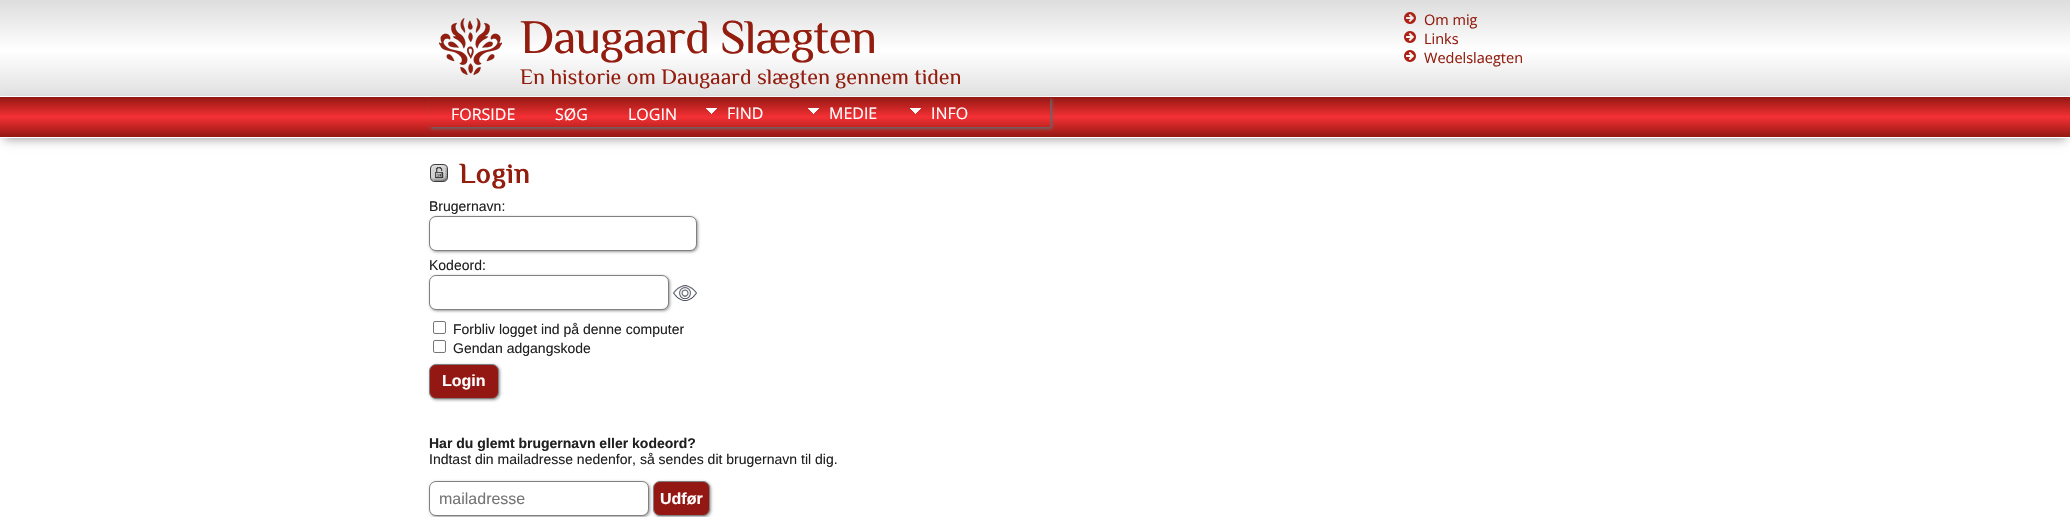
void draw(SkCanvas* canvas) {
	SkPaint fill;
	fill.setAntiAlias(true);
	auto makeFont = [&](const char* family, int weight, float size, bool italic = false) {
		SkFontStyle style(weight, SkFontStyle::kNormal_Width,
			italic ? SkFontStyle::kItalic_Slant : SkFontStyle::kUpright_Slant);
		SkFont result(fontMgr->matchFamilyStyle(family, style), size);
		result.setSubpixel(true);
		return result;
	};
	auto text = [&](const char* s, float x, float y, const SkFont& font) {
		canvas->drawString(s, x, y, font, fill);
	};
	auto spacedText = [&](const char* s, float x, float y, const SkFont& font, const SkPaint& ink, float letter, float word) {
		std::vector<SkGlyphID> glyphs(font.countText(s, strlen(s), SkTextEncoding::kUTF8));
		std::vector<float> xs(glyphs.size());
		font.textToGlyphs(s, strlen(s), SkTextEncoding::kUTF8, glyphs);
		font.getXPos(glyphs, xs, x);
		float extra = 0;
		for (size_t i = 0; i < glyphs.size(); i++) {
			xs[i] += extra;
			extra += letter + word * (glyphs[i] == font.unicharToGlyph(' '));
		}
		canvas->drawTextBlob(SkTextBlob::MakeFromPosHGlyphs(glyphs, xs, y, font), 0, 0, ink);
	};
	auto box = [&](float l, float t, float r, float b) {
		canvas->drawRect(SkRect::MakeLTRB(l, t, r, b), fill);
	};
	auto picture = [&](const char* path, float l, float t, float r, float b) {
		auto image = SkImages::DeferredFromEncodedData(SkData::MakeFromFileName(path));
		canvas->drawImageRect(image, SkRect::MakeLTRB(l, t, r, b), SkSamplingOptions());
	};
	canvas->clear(0xFFFFFFFF);
	{
		const SkColor colors[] = {0xFFDDDDDD, 0xFFFFFFFF, 0xFFDDDDDD};
		const float stops[] = {0, 0.5f, 1};
		const SkPoint ends[] = {{1035, 0}, {1035, 101}};
		fill.setShader(SkGradientShader::MakeLinear(ends, colors, stops, 3, SkTileMode::kClamp));
		fill.setAlpha(255);
	}
	box(0, 0, 2070, 96);
	picture("image0.png", 439, 18, 502, 75);
	picture("image1.png", 1404, 12, 1416, 24);
	picture("image2.png", 1404, 31, 1416, 43);
	picture("image3.png", 1404, 50, 1416, 62);
	fill.setShader(nullptr);
	fill.setColor(0x66000000);
	fill.setMaskFilter(SkMaskFilter::MakeBlur(kNormal_SkBlurStyle, 5));
	canvas->drawRect(SkRect::MakeLTRB(4, 105, 2066, 139), fill);
	fill.setMaskFilter(nullptr);
	{
		const SkColor colors[] = {0xFF931813, 0xFFF43034, 0xFF931813};
		const float stops[] = {0, 0.5f, 1};
		const SkPoint ends[] = {{1035, 97}, {1035, 137}};
		fill.setShader(SkGradientShader::MakeLinear(ends, colors, stops, 3, SkTileMode::kClamp));
		fill.setAlpha(255);
	}
	box(0, 97, 2070, 137);
	fill.setShader(nullptr);
	fill.setColor(0xFFFFFFFF);
	box(0, 96, 2070, 97);
	box(0, 137, 2070, 138);
	canvas->save();
	canvas->clipPath(SkPathBuilder(SkPathFillType::kEvenOdd).moveTo(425, 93).lineTo(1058, 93).lineTo(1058, 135).lineTo(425, 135).close().moveTo(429, 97).lineTo(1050, 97).lineTo(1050, 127).lineTo(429, 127).close().detach(), true);
	fill.setColor(0xFF666666);
	fill.setMaskFilter(SkMaskFilter::MakeBlur(kNormal_SkBlurStyle, 1.5f));
	canvas->drawRect(SkRect::MakeLTRB(431, 99, 1052, 129), fill);
	fill.setMaskFilter(nullptr);
	canvas->restore();
	picture("image4.png", 706, 108, 717, 114);
	picture("image4.png", 808, 108, 819, 114);
	picture("image4.png", 910, 108, 921, 114);
	picture("image5.png", 430, 164, 448, 182);
	fill.setColor(0xFF999999);
	fill.setMaskFilter(SkMaskFilter::MakeBlur(kNormal_SkBlurStyle, 1.5f));
	canvas->drawRoundRect(SkRect::MakeLTRB(430, 217, 698, 252), 7, 7, fill);
	fill.setMaskFilter(nullptr);
	fill.setColor(0xFFFFFFFF);
	canvas->drawRoundRect(SkRect::MakeLTRB(429.5f, 216.5f, 696.5f, 250.5f), 6.5f, 6.5f, fill);
	fill.setStyle(SkPaint::kStroke_Style);
	fill.setStrokeWidth(1);
	fill.setColor(0xFF808080);
	canvas->drawRoundRect(SkRect::MakeLTRB(429.5f, 216.5f, 696.5f, 250.5f), 6.5f, 6.5f, fill);
	fill.setStyle(SkPaint::kFill_Style);
	fill.setColor(0xFF999999);
	fill.setMaskFilter(SkMaskFilter::MakeBlur(kNormal_SkBlurStyle, 1.5f));
	canvas->drawRoundRect(SkRect::MakeLTRB(430, 276, 670, 311), 7, 7, fill);
	fill.setMaskFilter(nullptr);
	fill.setColor(0xFFFFFFFF);
	canvas->drawRoundRect(SkRect::MakeLTRB(429.5f, 275.5f, 668.5f, 309.5f), 6.5f, 6.5f, fill);
	fill.setStyle(SkPaint::kStroke_Style);
	fill.setColor(0xFF808080);
	canvas->drawRoundRect(SkRect::MakeLTRB(429.5f, 275.5f, 668.5f, 309.5f), 6.5f, 6.5f, fill);
	picture("image6.png", 673, 285, 697, 301);
	fill.setColor(0xFF767676);
	canvas->drawRoundRect(SkRect::MakeLTRB(433.5f, 321.5f, 445.5f, 333.5f), 1.5f, 1.5f, fill);
	canvas->drawRoundRect(SkRect::MakeLTRB(433.5f, 340.5f, 445.5f, 352.5f), 1.5f, 1.5f, fill);
	fill.setStyle(SkPaint::kFill_Style);
	fill.setColor(0xFF999999);
	fill.setMaskFilter(SkMaskFilter::MakeBlur(kNormal_SkBlurStyle, 1.5f));
	canvas->drawRoundRect(SkRect::MakeLTRB(430, 365, 500, 400), 7, 7, fill);
	fill.setMaskFilter(nullptr);
	fill.setColor(0xFF931813);
	canvas->drawRoundRect(SkRect::MakeLTRB(429.5f, 364.5f, 498.5f, 398.5f), 6.5f, 6.5f, fill);
	fill.setStyle(SkPaint::kStroke_Style);
	fill.setColor(0xFF808080);
	canvas->drawRoundRect(SkRect::MakeLTRB(429.5f, 364.5f, 498.5f, 398.5f), 6.5f, 6.5f, fill);
	fill.setStyle(SkPaint::kFill_Style);
	fill.setColor(0xFF999999);
	fill.setMaskFilter(SkMaskFilter::MakeBlur(kNormal_SkBlurStyle, 1.5f));
	canvas->drawRoundRect(SkRect::MakeLTRB(430, 482, 650, 517), 7, 7, fill);
	fill.setMaskFilter(nullptr);
	fill.setColor(0xFFFFFFFF);
	canvas->drawRoundRect(SkRect::MakeLTRB(429.5f, 481.5f, 648.5f, 515.5f), 6.5f, 6.5f, fill);
	fill.setStyle(SkPaint::kStroke_Style);
	fill.setColor(0xFF808080);
	canvas->drawRoundRect(SkRect::MakeLTRB(429.5f, 481.5f, 648.5f, 515.5f), 6.5f, 6.5f, fill);
	fill.setStyle(SkPaint::kFill_Style);
	fill.setColor(0xFF999999);
	fill.setMaskFilter(SkMaskFilter::MakeBlur(kNormal_SkBlurStyle, 1.5f));
	canvas->drawRoundRect(SkRect::MakeLTRB(654, 482, 711, 517), 7, 7, fill);
	fill.setMaskFilter(nullptr);
	fill.setColor(0xFF931813);
	canvas->drawRoundRect(SkRect::MakeLTRB(653.5f, 481.5f, 709.5f, 515.5f), 6.5f, 6.5f, fill);
	fill.setStyle(SkPaint::kStroke_Style);
	fill.setColor(0xFF808080);
	canvas->drawRoundRect(SkRect::MakeLTRB(653.5f, 481.5f, 709.5f, 515.5f), 6.5f, 6.5f, fill);
	auto font1 = makeFont("Philosopher", 400, 48);
	fill.setStyle(SkPaint::kFill_Style);
	fill.setColor(0xFF931D0F);
	spacedText("Daugaard Slægten", 520, 53, font1, fill, -1, 0);
	auto font2 = makeFont("Philosopher", 400, 22);
	text("En historie om Daugaard slægten gennem tiden", 520, 84, font2);
	auto font3 = makeFont("Open Sans", 400, 14.5f);
	text("Om mig", 1424, 25, font3);
	text("Links", 1424, 44, font3);
	text("Wedelslaegten", 1424, 63, font3);
	auto font4 = makeFont("Open Sans", 400, 16);
	fill.setColor(0xFFFFFFFF);
	text("FORSIDE", 451, 120, font4);
	text("SØG", 555, 120, font4);
	text("LOGIN", 628, 120, font4);
	text("FIND", 727, 119, font4);
	text("MEDIE", 829, 119, font4);
	text("INFO", 931, 119, font4);
	auto font5 = makeFont("Philosopher", 700, 28);
	fill.setColor(0xFF931D0F);
	spacedText("Login", 459, 183, font5, fill, 1, 0);
	auto font6 = makeFont("Liberation Sans", 400, 14);
	fill.setColor(0xFF202020);
	text("Brugernavn:", 429, 211, font6);
	text("Kodeord:", 429, 270, font6);
	text("Forbliv logget ind på denne computer", 453, 334, font6);
	text("Gendan adgangskode", 453, 353, font6);
	auto font7 = makeFont("Liberation Sans", 700, 16);
	fill.setColor(0xFFFFFFFF);
	text("Login", 442, 386, font7);
	auto font8 = makeFont("Liberation Sans", 700, 14);
	fill.setColor(0xFF202020);
	text("Har du glemt brugernavn eller kodeord?", 429, 448, font8);
	text("Indtast din mailadresse nedenfor, så sendes dit brugernavn til dig.", 429, 464, font6);
	auto font9 = makeFont("Liberation Sans", 400, 16);
	fill.setColor(0xFF757575);
	text("mailadresse", 439, 504, font9);
	fill.setColor(0xFFFFFFFF);
	text("Udfør", 660, 504, font7);
}
